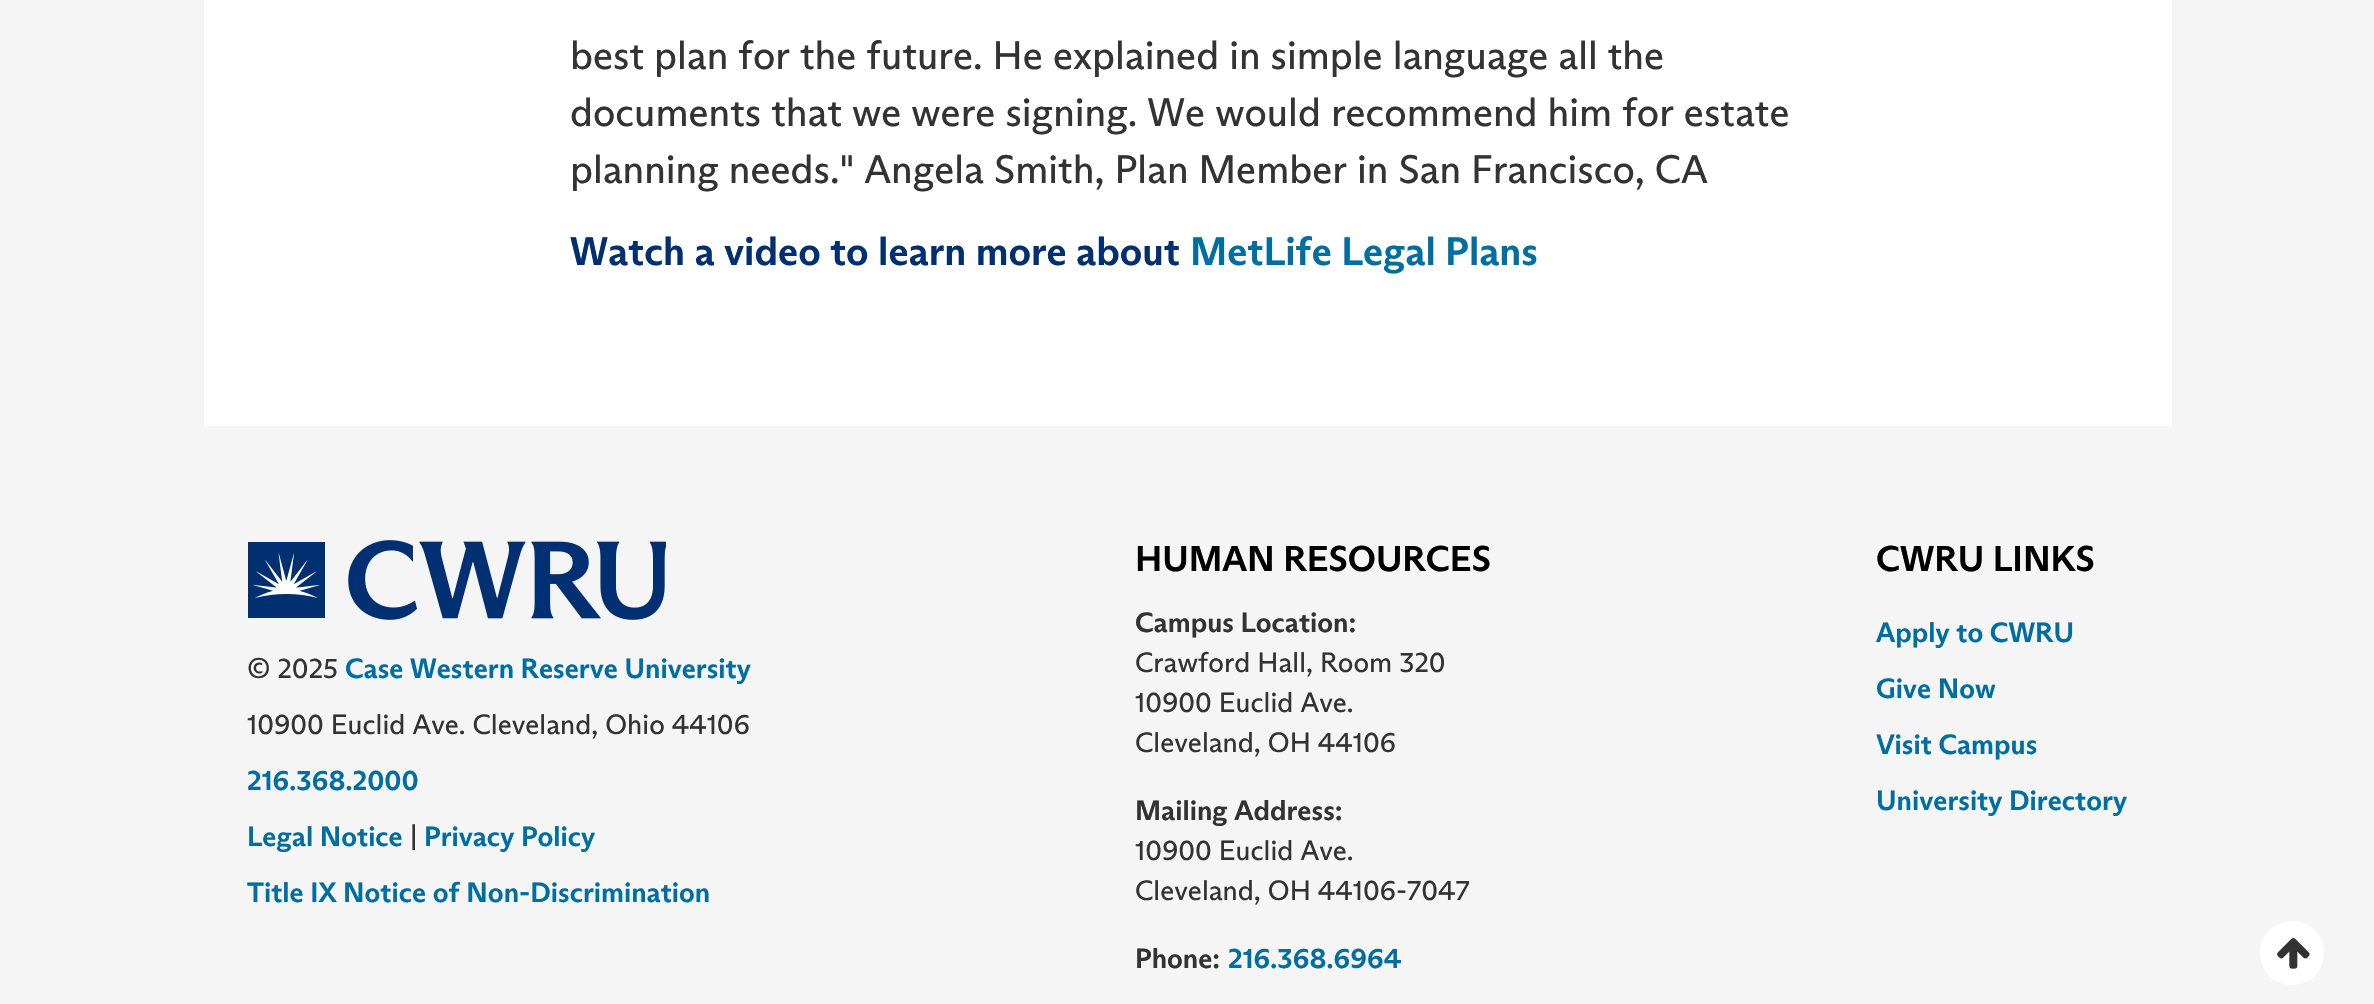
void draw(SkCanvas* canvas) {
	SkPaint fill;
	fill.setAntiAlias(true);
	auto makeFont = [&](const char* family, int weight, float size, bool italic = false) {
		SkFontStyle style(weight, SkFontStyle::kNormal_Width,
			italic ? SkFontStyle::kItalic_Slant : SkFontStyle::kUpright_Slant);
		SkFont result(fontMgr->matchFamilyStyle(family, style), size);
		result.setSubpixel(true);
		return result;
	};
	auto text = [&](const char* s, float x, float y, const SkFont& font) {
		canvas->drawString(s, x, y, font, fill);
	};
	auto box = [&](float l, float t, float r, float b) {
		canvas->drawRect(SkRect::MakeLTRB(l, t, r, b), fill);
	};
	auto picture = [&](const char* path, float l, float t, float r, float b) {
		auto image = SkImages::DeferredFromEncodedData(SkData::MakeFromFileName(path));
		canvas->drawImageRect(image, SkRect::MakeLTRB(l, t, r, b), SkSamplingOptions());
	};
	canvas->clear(0xFFF5F5F5);
	fill.setColor(0xFFFFFFFF);
	box(204, 0, 2172, 426);
	picture("image0.png", 248, 540, 666, 620);
	canvas->drawPath(SkPathBuilder().moveTo(2320, 937).cubicTo(2323, 943, 2324, 949, 2324, 955).cubicTo(2322, 987, 2280, 996, 2264, 969).cubicTo(2261, 964, 2260, 958, 2260, 951).cubicTo(2262, 920, 2304, 910, 2320, 937).close().detach(), fill);
	picture("image1.png", 2277, 938, 2310, 969);
	auto font1 = makeFont("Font", 400, 40);
	fill.setColor(0xFF333333);
	text("best plan for the future. He explained in simple language all the", 570, 69, font1);
	text("documents that we were signing. We would recommend him for estate", 570, 126, font1);
	text("planning needs.\" Angela Smith, Plan Member in San Francisco, CA", 570, 183, font1);
	auto font2 = makeFont("Font", 700, 40);
	fill.setColor(0xFF003071);
	text("Watch a video to learn more about", 570, 265, font2);
	fill.setColor(0xFF006DA3);
	text("MetLife Legal Plans", 1190, 265, font2);
	auto font3 = makeFont("Font", 400, 28);
	fill.setColor(0xFF333333);
	text("© 2025", 247, 678, font3);
	auto font4 = makeFont("Font", 700, 28);
	fill.setColor(0xFF006DA3);
	text("Case Western Reserve University", 345, 678, font4);
	fill.setColor(0xFF333333);
	text("10900 Euclid Ave. Cleveland, Ohio 44106", 247, 734, font3);
	fill.setColor(0xFF006DA3);
	text("216.368.2000", 247, 790, font4);
	text("Legal Notice", 247, 846, font4);
	fill.setColor(0xFF333333);
	text("|", 410, 846, font3);
	fill.setColor(0xFF006DA3);
	text("Privacy Policy", 424, 846, font4);
	text("Title IX Notice of Non-Discrimination", 247, 902, font4);
	auto font5 = makeFont("Font", 700, 36);
	fill.setColor(0xFF000000);
	text("HUMAN RESOURCES", 1135, 571, font5);
	fill.setColor(0xFF333333);
	text("Campus Location:", 1135, 632, font4);
	text("Crawford Hall, Room 320", 1135, 672, font3);
	text("10900 Euclid Ave.", 1135, 712, font3);
	text("Cleveland, OH 44106", 1135, 752, font3);
	text("Mailing Address:", 1135, 820, font4);
	text("10900 Euclid Ave.", 1135, 860, font3);
	text("Cleveland, OH 44106-7047", 1135, 900, font3);
	text("Phone:", 1135, 968, font4);
	fill.setColor(0xFF006DA3);
	text("216.368.6964", 1228, 968, font4);
	fill.setColor(0xFF000000);
	text("CWRU LINKS", 1876, 571, font5);
	fill.setColor(0xFF006DA3);
	text("Apply to CWRU", 1876, 642, font4);
	text("Give Now", 1876, 698, font4);
	text("Visit Campus", 1876, 754, font4);
	text("University Directory", 1876, 810, font4);
}
